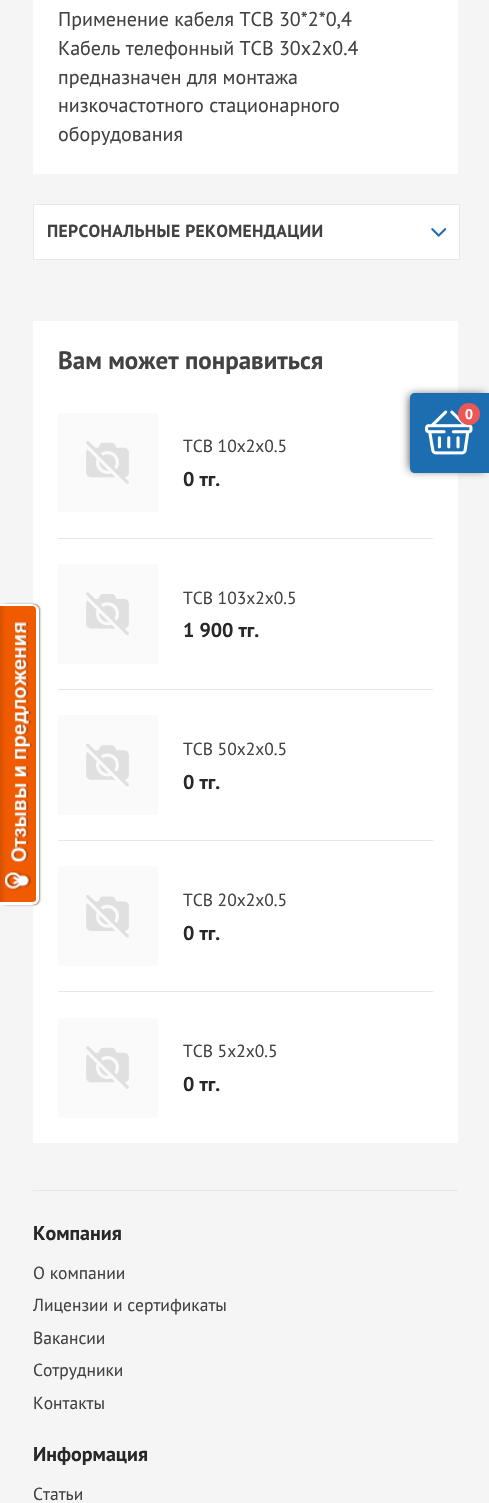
void draw(SkCanvas* canvas) {
	SkPaint fill;
	fill.setAntiAlias(true);
	auto makeFont = [&](const char* family, int weight, float size, bool italic = false) {
		SkFontStyle style(weight, SkFontStyle::kNormal_Width,
			italic ? SkFontStyle::kItalic_Slant : SkFontStyle::kUpright_Slant);
		SkFont result(fontMgr->matchFamilyStyle(family, style), size);
		result.setSubpixel(true);
		return result;
	};
	auto text = [&](const char* s, float x, float y, const SkFont& font) {
		canvas->drawString(s, x, y, font, fill);
	};
	auto spacedText = [&](const char* s, float x, float y, const SkFont& font, const SkPaint& ink, float letter, float word) {
		std::vector<SkGlyphID> glyphs(font.countText(s, strlen(s), SkTextEncoding::kUTF8));
		std::vector<float> xs(glyphs.size());
		font.textToGlyphs(s, strlen(s), SkTextEncoding::kUTF8, glyphs);
		font.getXPos(glyphs, xs, x);
		float extra = 0;
		for (size_t i = 0; i < glyphs.size(); i++) {
			xs[i] += extra;
			extra += letter + word * (glyphs[i] == font.unicharToGlyph(' '));
		}
		canvas->drawTextBlob(SkTextBlob::MakeFromPosHGlyphs(glyphs, xs, y, font), 0, 0, ink);
	};
	auto box = [&](float l, float t, float r, float b) {
		canvas->drawRect(SkRect::MakeLTRB(l, t, r, b), fill);
	};
	auto picture = [&](const char* path, float l, float t, float r, float b) {
		auto image = SkImages::DeferredFromEncodedData(SkData::MakeFromFileName(path));
		canvas->drawImageRect(image, SkRect::MakeLTRB(l, t, r, b), SkSamplingOptions());
	};
	canvas->clear(0xFFF5F5F5);
	fill.setColor(0xFFFFFFFF);
	box(33, 0, 458, 174);
	fill.setStyle(SkPaint::kStroke_Style);
	fill.setStrokeWidth(1);
	fill.setColor(0xFFE7E7E7);
	canvas->drawRect(SkRect::MakeLTRB(33.5f, 204.5f, 459.5f, 259.5f), fill);
	fill.setStyle(SkPaint::kFill_Style);
	fill.setColor(0xFFFFFFFF);
	box(34, 205, 459, 259);
	picture("image0.png", 431, 228, 447, 237);
	box(33, 321, 458, 1143);
	fill.setColor(0xFFE7E7E7);
	box(58, 538, 433, 539);
	picture("image1.png", 58, 413, 158, 512);
	box(58, 689, 433, 690);
	picture("image2.png", 58, 564, 158, 664);
	box(58, 840, 433, 841);
	picture("image3.png", 58, 715, 158, 815);
	box(58, 991, 433, 992);
	picture("image4.png", 58, 866, 158, 966);
	picture("image5.png", 58, 1018, 158, 1118);
	fill.setColor(0xFF424242);
	fill.setMaskFilter(SkMaskFilter::MakeBlur(kNormal_SkBlurStyle, 5));
	canvas->drawRoundRect(SkRect::MakeLTRB(410, 395, 485, 470), 2.5f, 2.5f, fill);
	fill.setMaskFilter(nullptr);
	fill.setColor(0xFF1D6EB1);
	canvas->drawPath(SkPathBuilder().moveTo(415, 393).lineTo(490, 393).lineTo(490, 473).lineTo(415, 473).cubicTo(412, 473, 410, 471, 410, 468).lineTo(410, 398).cubicTo(410, 395, 412, 393, 415, 393).close().detach(), fill);
	picture("image6.png", 425, 410, 473, 455);
	fill.setColor(0xFFEB5757);
	canvas->drawCircle(469, 414, 11, fill);
	fill.setColor(0xFF888888);
	fill.setMaskFilter(SkMaskFilter::MakeBlur(kNormal_SkBlurStyle, 1));
	canvas->drawRoundRect(SkRect::MakeLTRB(1, 604, 40, 905), 6, 6, fill);
	fill.setMaskFilter(nullptr);
	fill.setColor(0xFFF05A00);
	canvas->drawPath(SkPathBuilder().moveTo(0, 604).lineTo(33, 604).cubicTo(36.5f, 604, 39, 606.5f, 39, 610).lineTo(39, 899).cubicTo(39, 902.5f, 36.5f, 905, 33, 905).lineTo(0, 905).close().detach(), fill);
	picture("image7.png", 0, 603, 5, 902);
	fill.setColor(0xFFFFFFFF);
	canvas->drawPath(SkPathBuilder(SkPathFillType::kEvenOdd).moveTo(0, 604).lineTo(32, 604).cubicTo(36, 604, 39, 607, 39, 610).lineTo(39, 899).cubicTo(39, 902, 36, 905, 32, 905).lineTo(0, 905).close().moveTo(0, 606).lineTo(32, 606).cubicTo(35, 606, 36, 608, 36, 610).lineTo(36, 899).cubicTo(36, 901, 35, 902, 32, 902).lineTo(0, 902).close().detach(), fill);
	picture("image8.png", 5, 622, 32, 890);
	fill.setColor(0xFFE7E7E7);
	box(33, 1190, 458, 1191);
	auto font1 = makeFont("PT Sans", 400, 20);
	fill.setColor(0xFF424242);
	text("Применение кабеля ТСВ 30*2*0,4", 58, 26, font1);
	text("Кабель телефонный ТСВ 30х2х0.4", 58, 55, font1);
	text("предназначен для монтажа", 58, 84, font1);
	text("низкочастотного стационарного", 58, 112, font1);
	text("оборудования", 58, 141, font1);
	auto font2 = makeFont("PT Sans", 700, 17.5f);
	spacedText("ПЕРСОНАЛЬНЫЕ РЕКОМЕНДАЦИИ", 47, 237, font2, fill, 0.35f, 0);
	auto font3 = makeFont("PT Sans", 700, 25);
	text("Вам может понравиться", 58, 369, font3);
	auto font4 = makeFont("PT Sans", 400, 17.5f);
	text("ТСВ 10х2х0.5", 183, 452, font4);
	auto font5 = makeFont("PT Sans", 700, 20);
	fill.setColor(0xFF282828);
	text("0 тг.", 183, 486, font5);
	fill.setColor(0xFF424242);
	text("ТСВ 103х2х0.5", 183, 604, font4);
	fill.setColor(0xFF282828);
	text("1 900 тг.", 183, 637, font5);
	fill.setColor(0xFF424242);
	text("ТСВ 50х2х0.5", 183, 755, font4);
	fill.setColor(0xFF282828);
	text("0 тг.", 183, 789, font5);
	fill.setColor(0xFF424242);
	text("ТСВ 20х2х0.5", 183, 906, font4);
	fill.setColor(0xFF282828);
	text("0 тг.", 183, 940, font5);
	fill.setColor(0xFF424242);
	text("ТСВ 5х2х0.5", 183, 1057, font4);
	fill.setColor(0xFF282828);
	text("0 тг.", 183, 1091, font5);
	auto font6 = makeFont("PT Sans", 700, 14);
	fill.setColor(0xFFFFFFFF);
	text("0", 465, 419, font6);
	fill.setColor(0xFF282828);
	text("Компания", 33, 1240, font5);
	fill.setColor(0xFF424242);
	text("О компании", 33, 1279, font4);
	text("Лицензии и сертификаты", 33, 1311, font4);
	text("Вакансии", 33, 1344, font4);
	text("Сотрудники", 33, 1376, font4);
	text("Контакты", 33, 1409, font4);
	fill.setColor(0xFF282828);
	text("Информация", 33, 1461, font5);
	fill.setColor(0xFF424242);
	text("Статьи", 33, 1500, font4);
}
